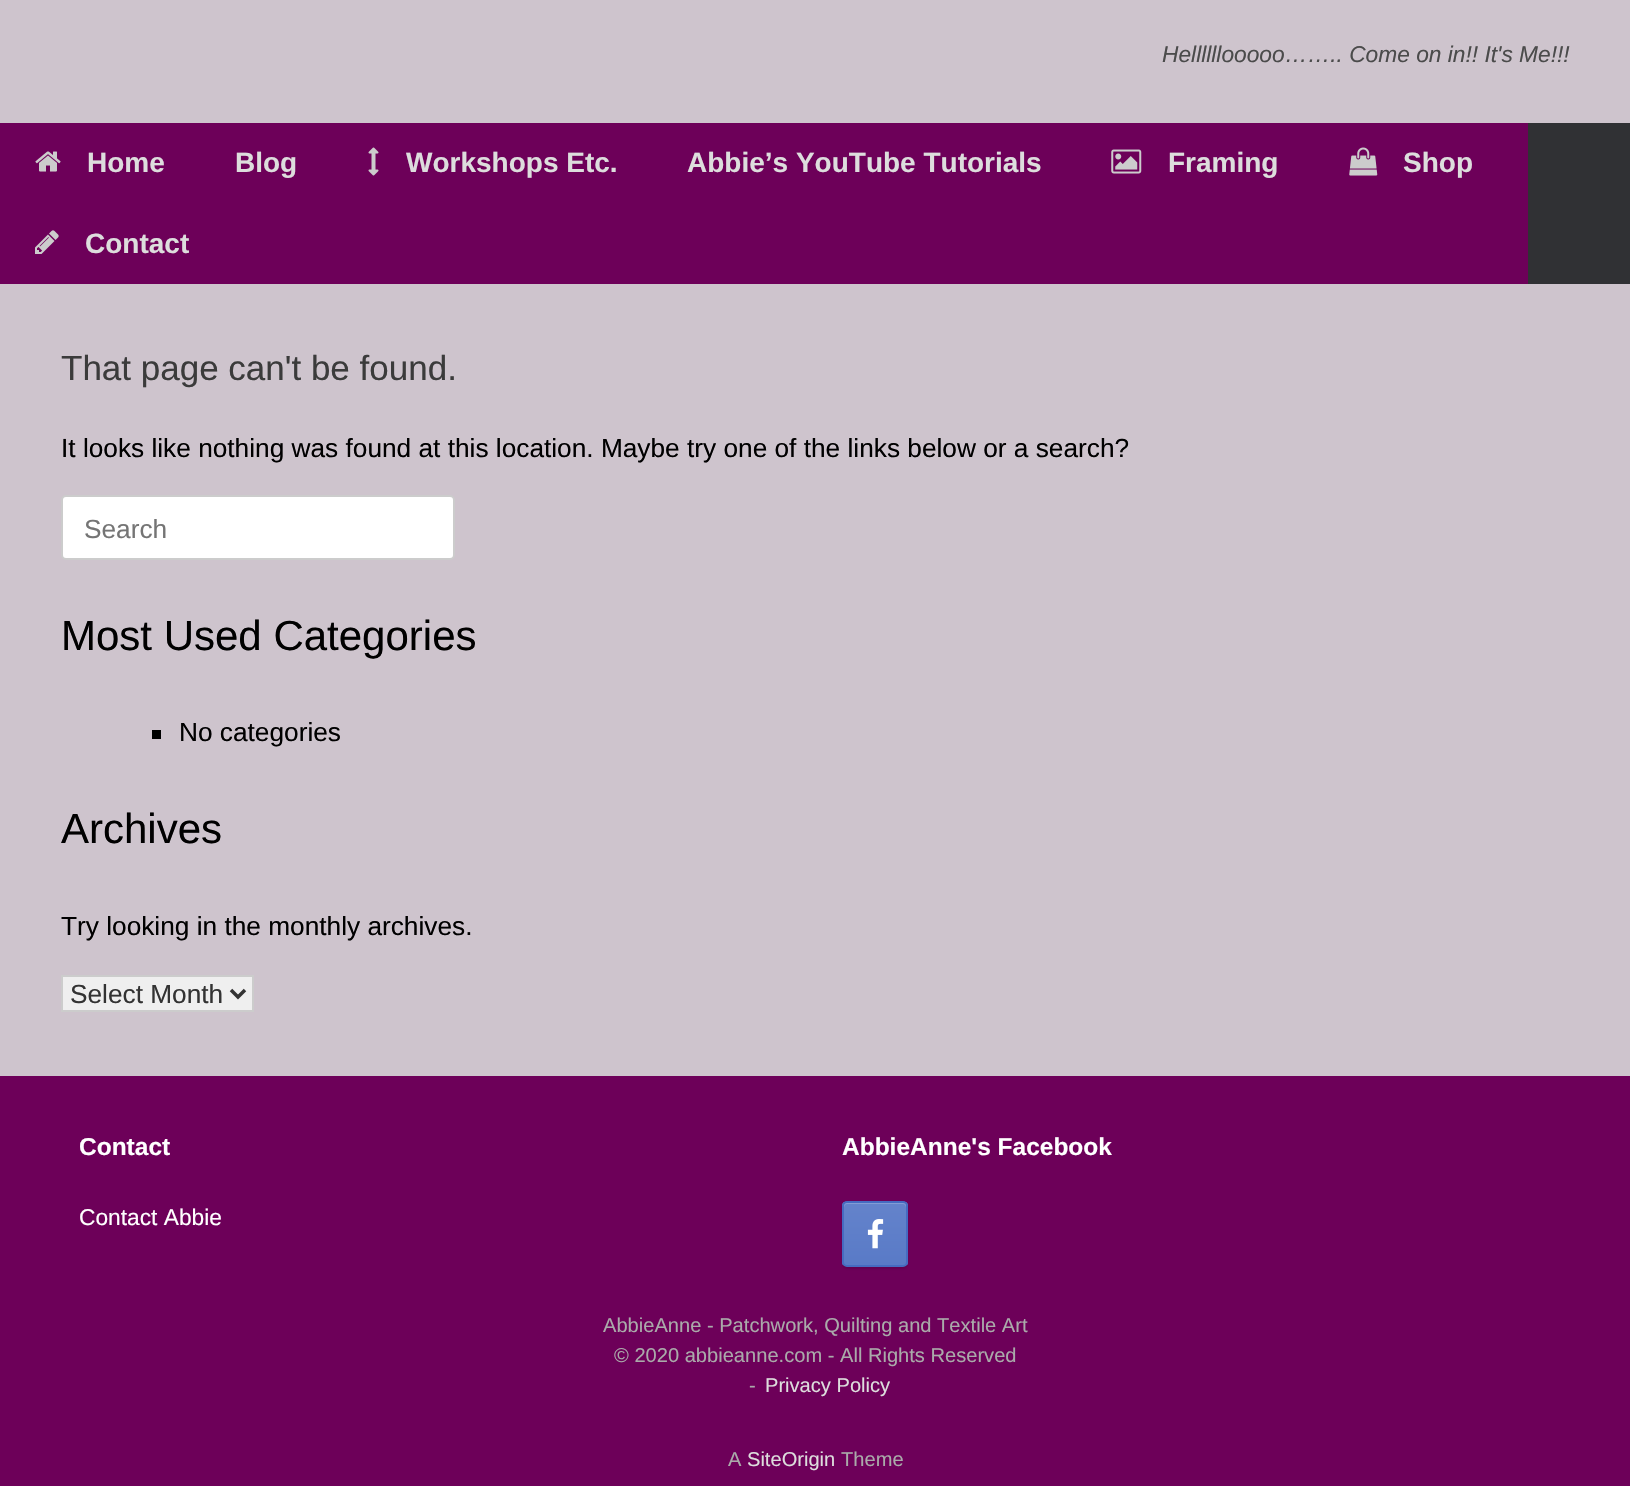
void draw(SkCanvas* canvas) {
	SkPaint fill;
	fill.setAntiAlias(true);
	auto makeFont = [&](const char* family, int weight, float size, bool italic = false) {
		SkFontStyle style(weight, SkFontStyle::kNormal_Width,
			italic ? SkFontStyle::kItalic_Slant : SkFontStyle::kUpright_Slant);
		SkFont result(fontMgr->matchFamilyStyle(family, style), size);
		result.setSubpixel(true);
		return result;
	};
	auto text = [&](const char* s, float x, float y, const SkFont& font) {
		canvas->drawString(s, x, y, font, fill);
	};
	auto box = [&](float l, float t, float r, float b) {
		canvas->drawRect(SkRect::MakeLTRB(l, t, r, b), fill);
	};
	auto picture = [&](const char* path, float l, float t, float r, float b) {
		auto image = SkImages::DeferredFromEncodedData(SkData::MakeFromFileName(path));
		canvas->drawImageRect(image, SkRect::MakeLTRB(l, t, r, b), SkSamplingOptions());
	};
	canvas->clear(0xFF6D0059);
	fill.setColor(0xFFCEC4CD);
	box(0, 0, 1630, 123);
	picture("image0.png", 35, 151, 61, 172);
	picture("image1.png", 368, 147, 379, 176);
	picture("image2.png", 1111, 149, 1142, 174);
	picture("image3.png", 1349, 147, 1378, 176);
	picture("image4.png", 35, 230, 59, 254);
	fill.setColor(0xFF303134);
	box(1528, 123, 1630, 284);
	fill.setColor(0xFFCEC4CD);
	box(0, 284, 1630, 1076);
	fill.setColor(0xFFFFFFFF);
	canvas->drawRoundRect(SkRect::MakeLTRB(62, 496, 454, 559), 4, 4, fill);
	fill.setStyle(SkPaint::kStroke_Style);
	fill.setStrokeWidth(2);
	fill.setColor(0xFFCCCCCC);
	canvas->drawRoundRect(SkRect::MakeLTRB(62, 496, 454, 559), 4, 4, fill);
	fill.setStyle(SkPaint::kFill_Style);
	fill.setColor(0xFF000000);
	box(152, 730, 161, 739);
	fill.setColor(0xFFEFEFEF);
	canvas->drawRect(SkRect::MakeLTRB(62, 976, 253, 1011), fill);
	fill.setStyle(SkPaint::kStroke_Style);
	fill.setColor(0xFFCCCCCC);
	canvas->drawRect(SkRect::MakeLTRB(62, 976, 253, 1011), fill);
	fill.setStrokeWidth(3.5f);
	fill.setColor(0xFF333333);
	canvas->drawPath(SkPathBuilder().moveTo(231, 990).lineTo(238, 997).lineTo(245, 990).detach(), fill);
	fill.setStyle(SkPaint::kFill_Style);
	fill.setColor(0x1A000000);
	fill.setMaskFilter(SkMaskFilter::MakeBlur(kNormal_SkBlurStyle, 1));
	canvas->drawRoundRect(SkRect::MakeLTRB(842, 1202, 908, 1269), 5, 5, fill);
	fill.setMaskFilter(nullptr);
	canvas->save();
	canvas->clipPath(SkPathBuilder().moveTo(847, 1201).lineTo(903, 1201).cubicTo(906, 1201, 908, 1203, 908, 1206).lineTo(908, 1262).cubicTo(908, 1265, 906, 1267, 903, 1267).lineTo(847, 1267).cubicTo(844, 1267, 842, 1265, 842, 1262).lineTo(842, 1206).cubicTo(842, 1203, 844, 1201, 847, 1201).close().detach(), true);
	{
		const SkColor colors[] = {0xFF597AC7, 0xFF6483CB};
		const float stops[] = {0, 1};
		const SkPoint ends[] = {{844, 1265}, {844, 1202}};
		fill.setShader(SkGradientShader::MakeLinear(ends, colors, stops, 2, SkTileMode::kClamp));
		fill.setAlpha(255);
	}
	box(842, 1202, 908, 1265);
	canvas->restore();
	fill.setShader(nullptr);
	fill.setColor(0x33FFFFFF);
	canvas->drawPath(SkPathBuilder().moveTo(847, 1204).lineTo(903, 1204).cubicTo(905, 1204, 906, 1206, 906, 1208).lineTo(906, 1264).cubicTo(907, 1263, 907, 1262, 907, 1261).lineTo(907, 1206).cubicTo(907, 1204, 905, 1202, 903, 1202).lineTo(848, 1202).cubicTo(846, 1202, 844, 1204, 844, 1206).lineTo(844, 1208).cubicTo(844, 1206, 845, 1204, 847, 1204).close().detach(), fill);
	fill.setStyle(SkPaint::kStroke_Style);
	fill.setStrokeWidth(2);
	fill.setColor(0xFF466BC1);
	canvas->drawRoundRect(SkRect::MakeLTRB(843, 1202, 907, 1266), 4, 4, fill);
	picture("image5.png", 867, 1219, 884, 1249);
	auto font1 = makeFont("Liberation Sans", 400, 22.75f, true);
	fill.setStyle(SkPaint::kFill_Style);
	fill.setColor(0xFF4B4B4B);
	text("Hellllllooooo…….. Come on in!! It's Me!!!", 1162, 62, font1);
	auto font2 = makeFont("Liberation Sans", 700, 28);
	fill.setColor(0xFFDDDDDD);
	text("Home", 87, 172, font2);
	text("Blog", 235, 172, font2);
	text("Workshops Etc.", 406, 172, font2);
	text("Abbie’s YouTube Tutorials", 687, 172, font2);
	text("Framing", 1168, 172, font2);
	text("Shop", 1403, 172, font2);
	text("Contact", 85, 253, font2);
	auto font3 = makeFont("Liberation Sans", 400, 35);
	fill.setColor(0xFF3B3B3B);
	text("That page can't be found.", 61, 380, font3);
	auto font4 = makeFont("Liberation Sans", 400, 26.25f);
	fill.setColor(0xFF000000);
	text("It looks like nothing was found at this location. Maybe try one of the links below or a search?", 61, 457, font4);
	fill.setColor(0xFF757575);
	text("Search", 84, 538, font4);
	auto font5 = makeFont("Liberation Sans", 400, 42);
	fill.setColor(0xFF000000);
	text("Most Used Categories", 61, 650, font5);
	text("No categories", 179, 741, font4);
	text("Archives", 61, 843, font5);
	text("Try looking in the monthly archives.", 61, 935, font4);
	fill.setColor(0xFF333333);
	text("Select Month", 70, 1003, font4);
	auto font6 = makeFont("Liberation Sans", 700, 24.5f);
	fill.setColor(0xFFFFFFFF);
	text("Contact", 79, 1155, font6);
	auto font7 = makeFont("Liberation Sans", 400, 22.75f);
	text("Contact Abbie", 79, 1225, font7);
	text("AbbieAnne's Facebook", 842, 1155, font6);
	auto font8 = makeFont("Liberation Sans", 400, 20.1f);
	fill.setColor(0xFFAAAAAA);
	text("AbbieAnne - Patchwork, Quilting and Textile Art", 603, 1332, font8);
	text("© 2020 abbieanne.com - All Rights Reserved", 614, 1362, font8);
	text("-", 749, 1392, font8);
	fill.setColor(0xFFDDDDDD);
	text("Privacy Policy", 765, 1392, font8);
	fill.setColor(0xFFAAAAAA);
	text("A", 728, 1466, font8);
	fill.setColor(0xFFDDDDDD);
	text("SiteOrigin", 747, 1466, font8);
	fill.setColor(0xFFAAAAAA);
	text("Theme", 841, 1466, font8);
}
